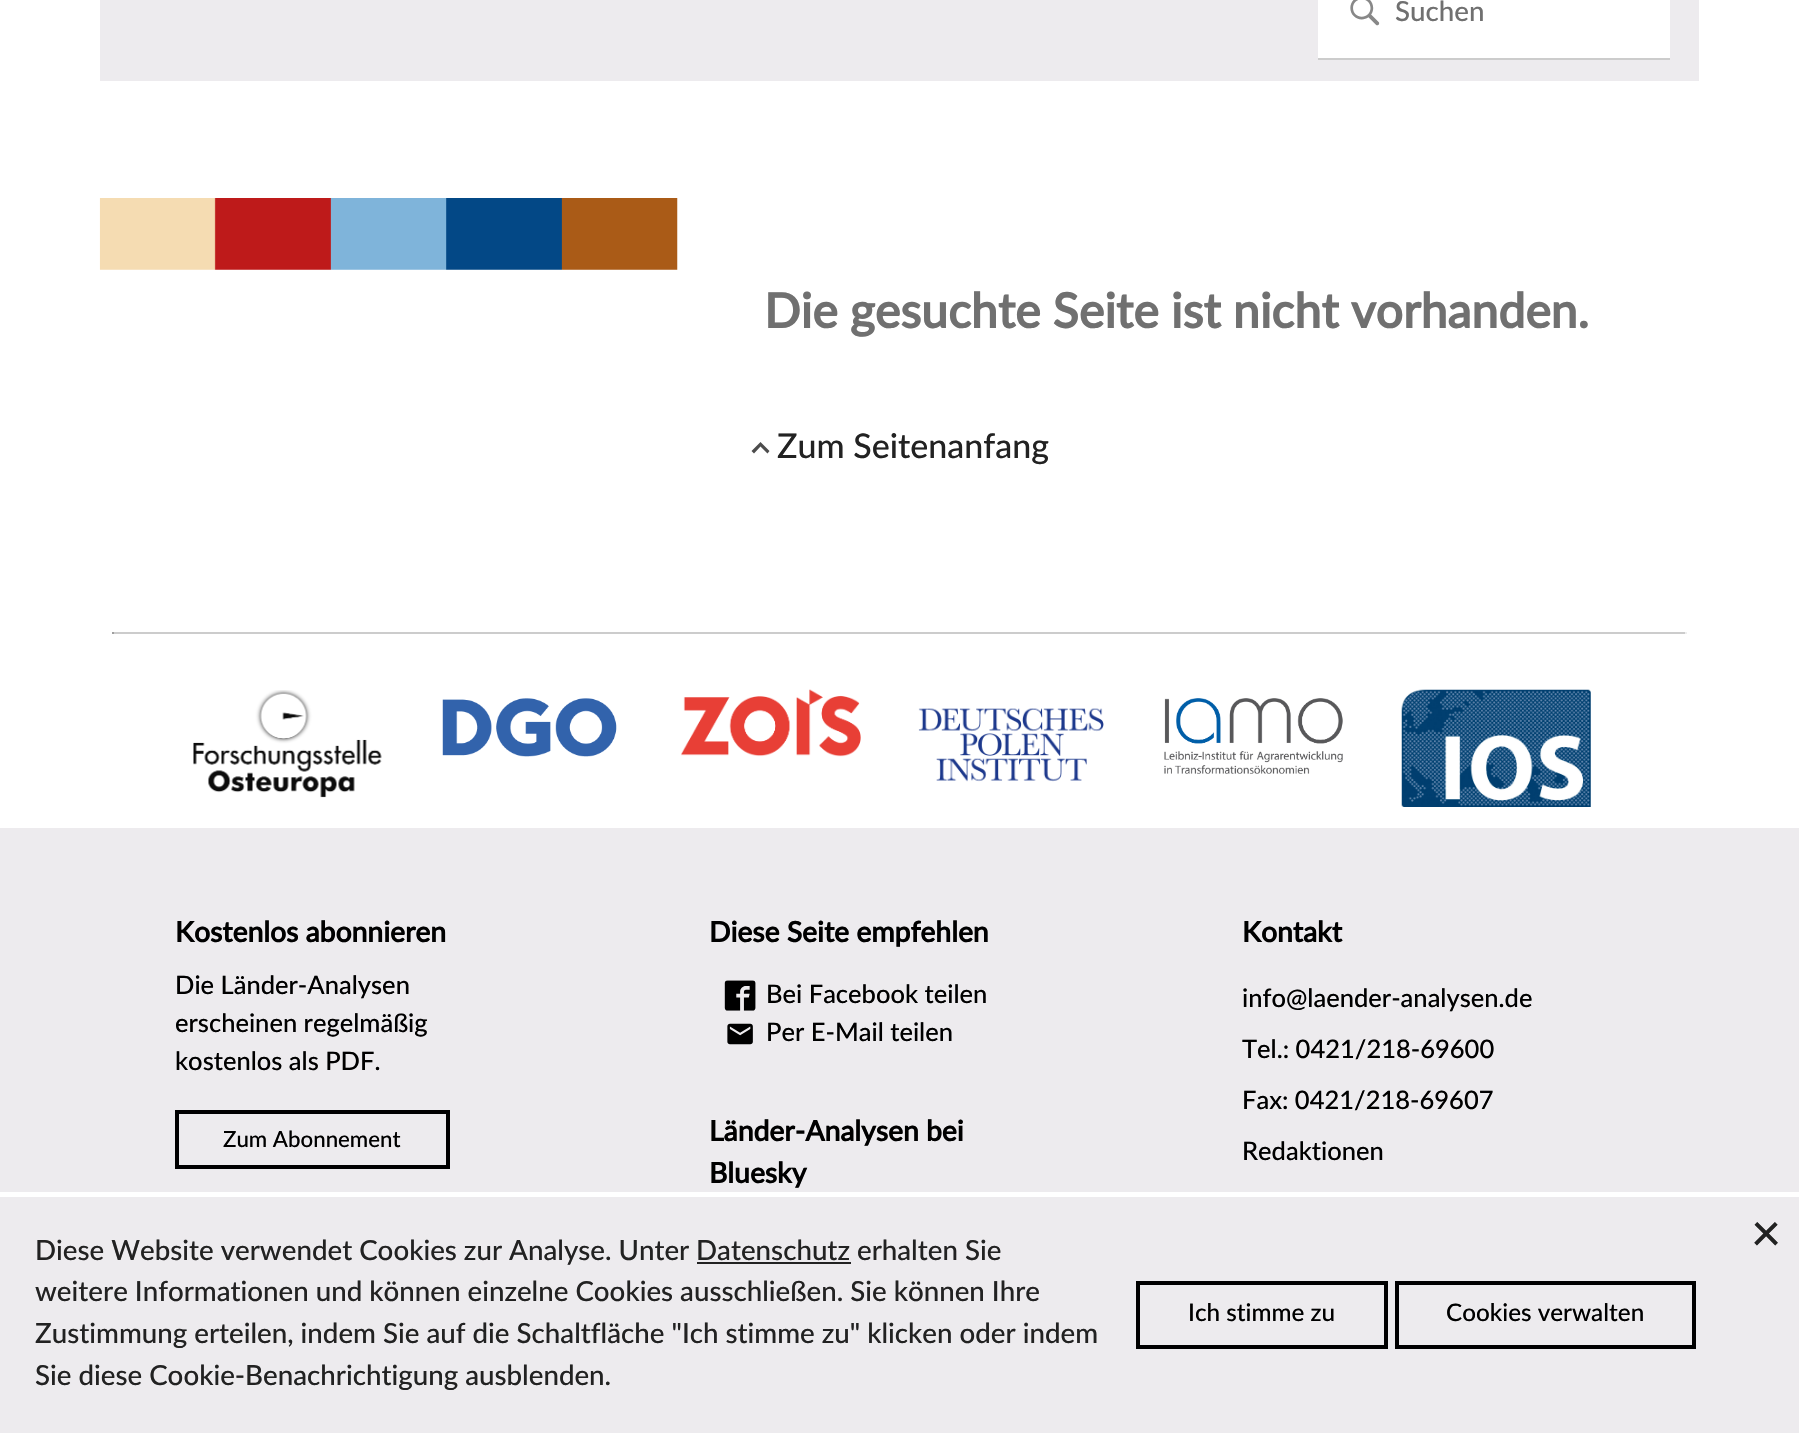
void draw(SkCanvas* canvas) {
	SkPaint fill;
	fill.setAntiAlias(true);
	auto makeFont = [&](const char* family, int weight, float size, bool italic = false) {
		SkFontStyle style(weight, SkFontStyle::kNormal_Width,
			italic ? SkFontStyle::kItalic_Slant : SkFontStyle::kUpright_Slant);
		SkFont result(fontMgr->matchFamilyStyle(family, style), size);
		result.setSubpixel(true);
		return result;
	};
	auto text = [&](const char* s, float x, float y, const SkFont& font) {
		canvas->drawString(s, x, y, font, fill);
	};
	auto box = [&](float l, float t, float r, float b) {
		canvas->drawRect(SkRect::MakeLTRB(l, t, r, b), fill);
	};
	auto picture = [&](const char* path, float l, float t, float r, float b) {
		auto image = SkImages::DeferredFromEncodedData(SkData::MakeFromFileName(path));
		canvas->drawImageRect(image, SkRect::MakeLTRB(l, t, r, b), SkSamplingOptions());
	};
	canvas->clear(0xFFFFFFFF);
	fill.setColor(0xFFEDEBEE);
	box(100, 0, 1699, 81);
	fill.setColor(0xFFFFFFFF);
	box(1318, 0, 1670, 58);
	fill.setColor(0xFFCCCCCC);
	box(1318, 58, 1670, 60);
	picture("image0.png", 1350, 0, 1380, 26);
	picture("image1.png", 99, 198, 678, 270);
	fill.setColor(0xFF4D4D4D);
	canvas->drawPath(SkPathBuilder().moveTo(767.5f, 453.5f).lineTo(769.5f, 451).lineTo(760.5f, 442).lineTo(751.5f, 451).lineTo(754, 453.5f).lineTo(760.5f, 446.5f).close().detach(), fill);
	fill.setColor(0xFFCCCCCC);
	box(112, 632, 1687, 634);
	fill.setColor(0xFFEEEEEE);
	box(1685, 632, 1687, 634);
	fill.setColor(0xFF9F9F9F);
	box(112, 632, 114, 634);
	picture("image2.png", 193, 690, 382, 798);
	picture("image3.png", 442, 698, 617, 757);
	picture("image4.png", 681, 689, 861, 757);
	picture("image5.png", 918, 708, 1104, 782);
	picture("image6.png", 1164, 698, 1343, 774);
	picture("image7.png", 1401, 689, 1591, 807);
	fill.setColor(0xFFEDEBEE);
	box(0, 828, 1799, 1192);
	fill.setStyle(SkPaint::kStroke_Style);
	fill.setStrokeWidth(4);
	fill.setColor(0xFF000000);
	canvas->drawRect(SkRect::MakeLTRB(177, 1112, 448, 1167), fill);
	picture("image8.png", 724, 980, 756, 1011);
	picture("image9.png", 727, 1023, 753, 1045);
	fill.setStyle(SkPaint::kFill_Style);
	fill.setColor(0xFFEDEBEE);
	box(0, 1197, 1799, 1433);
	fill.setColor(0xFF222222);
	box(697, 1262, 851, 1264);
	fill.setStyle(SkPaint::kStroke_Style);
	fill.setColor(0xFF000000);
	canvas->drawRect(SkRect::MakeLTRB(1138, 1283, 1386, 1347), fill);
	canvas->drawRect(SkRect::MakeLTRB(1397, 1283, 1694, 1347), fill);
	auto font1 = makeFont("Lato", 500, 27.7f);
	fill.setStyle(SkPaint::kFill_Style);
	fill.setColor(0xFF707070);
	text("Suchen", 1395, 21, font1);
	auto font2 = makeFont("Lato", 700, 48);
	text("Die gesuchte Seite ist nicht vorhanden.", 764, 328, font2);
	auto font3 = makeFont("Lato", 500, 34);
	fill.setColor(0xFF222222);
	text("Zum Seitenanfang", 777, 458, font3);
	auto font4 = makeFont("Lato", 700, 28.25f);
	fill.setColor(0xFF000000);
	text("Kostenlos abonnieren", 175, 942, font4);
	auto font5 = makeFont("Lato", 500, 25.5f);
	text("Die Länder-Analysen", 175, 994, font5);
	text("erscheinen regelmäßig", 175, 1032, font5);
	text("kostenlos als PDF.", 175, 1070, font5);
	auto font6 = makeFont("Lato", 500, 22.25f);
	text("Zum Abonnement", 223, 1147, font6);
	text("Diese Seite empfehlen", 709, 942, font4);
	text("Bei Facebook teilen", 766, 1003, font5);
	text("Per E-Mail teilen", 766, 1041, font5);
	text("Länder-Analysen bei", 709, 1141, font4);
	text("Bluesky", 709, 1183, font4);
	text("Kontakt", 1242, 942, font4);
	text("info@laender-analysen.de", 1242, 1007, font5);
	text("Tel.: 0421/218-69600", 1242, 1058, font5);
	text("Fax: 0421/218-69607", 1242, 1109, font5);
	text("Redaktionen", 1242, 1160, font5);
	auto font7 = makeFont("Lato", 500, 52);
	fill.setColor(0xFF222222);
	text("×", 1751, 1251, font7);
	text("Diese Website verwendet Cookies zur Analyse. Unter", 35, 1260, font1);
	text("Datenschutz erhalten Sie", 696, 1260, font1);
	text("weitere Informationen und können einzelne Cookies ausschließen. Sie können Ihre", 35, 1301, font1);
	text("Zustimmung erteilen, indem Sie auf die Schaltfläche \"Ich stimme zu\" klicken oder indem", 35, 1343, font1);
	text("Sie diese Cookie-Benachrichtigung ausblenden.", 35, 1385, font1);
	auto font8 = makeFont("Lato", 500, 24.25f);
	fill.setColor(0xFF000000);
	text("Ich stimme zu", 1188, 1321, font8);
	text("Cookies verwalten", 1446, 1321, font8);
}
